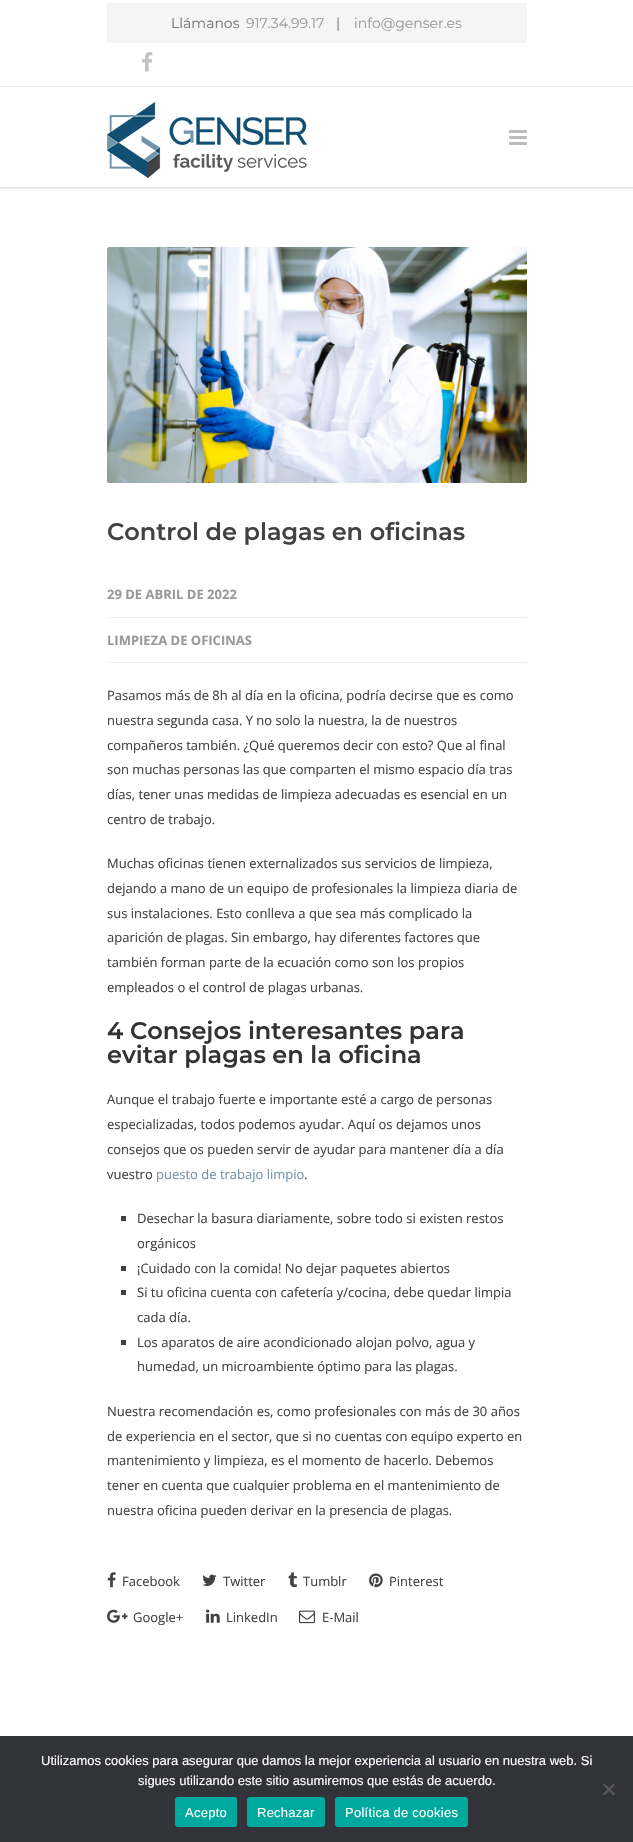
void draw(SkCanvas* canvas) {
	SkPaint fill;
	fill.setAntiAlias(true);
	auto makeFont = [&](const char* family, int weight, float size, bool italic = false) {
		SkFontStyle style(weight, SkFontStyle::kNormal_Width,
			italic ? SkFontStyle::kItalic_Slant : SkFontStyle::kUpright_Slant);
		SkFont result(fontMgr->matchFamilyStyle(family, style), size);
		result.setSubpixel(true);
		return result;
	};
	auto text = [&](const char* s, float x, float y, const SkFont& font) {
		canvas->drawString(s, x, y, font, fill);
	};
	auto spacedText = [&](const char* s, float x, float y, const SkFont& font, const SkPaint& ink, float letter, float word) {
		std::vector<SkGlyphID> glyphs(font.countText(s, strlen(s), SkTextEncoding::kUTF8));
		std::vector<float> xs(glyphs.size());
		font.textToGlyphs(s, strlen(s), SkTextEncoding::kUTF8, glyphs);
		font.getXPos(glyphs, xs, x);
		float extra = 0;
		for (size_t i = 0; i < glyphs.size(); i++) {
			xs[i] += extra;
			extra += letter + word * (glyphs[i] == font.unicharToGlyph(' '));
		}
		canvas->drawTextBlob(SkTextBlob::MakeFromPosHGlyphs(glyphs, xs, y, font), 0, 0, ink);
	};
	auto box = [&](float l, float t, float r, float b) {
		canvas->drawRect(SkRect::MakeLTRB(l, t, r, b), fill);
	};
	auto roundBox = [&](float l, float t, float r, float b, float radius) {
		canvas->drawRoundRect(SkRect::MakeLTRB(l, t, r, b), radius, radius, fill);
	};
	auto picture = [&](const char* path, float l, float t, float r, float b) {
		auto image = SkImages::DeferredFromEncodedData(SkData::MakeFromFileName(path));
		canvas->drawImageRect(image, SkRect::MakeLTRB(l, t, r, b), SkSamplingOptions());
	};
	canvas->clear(0xFFFFFFFF);
	canvas->save();
	canvas->clipRect(SkRect::MakeLTRB(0, 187, 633, 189));
	fill.setColor(0x29000000);
	fill.setMaskFilter(SkMaskFilter::MakeBlur(kNormal_SkBlurStyle, 1));
	canvas->drawRect(SkRect::MakeLTRB(-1, 86, 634, 188), fill);
	fill.setMaskFilter(nullptr);
	canvas->restore();
	fill.setColor(0xFFFFFFFF);
	box(0, 85, 633, 86);
	fill.setColor(0xFFE8E8E8);
	box(0, 86, 633, 87);
	fill.setColor(0xFFF5F5F5);
	box(107, 3, 527, 43);
	picture("image0.png", 142, 52, 153, 72);
	picture("image1.png", 107, 102, 307, 178);
	picture("image2.png", 509, 130, 527, 145);
	picture("image3.png", 107, 247, 527, 483);
	fill.setColor(0xFFEFEFEF);
	box(107, 617, 527, 618);
	box(107, 662, 527, 663);
	fill.setColor(0xFF424143);
	box(121, 1216, 126, 1221);
	box(121, 1266, 126, 1271);
	box(121, 1290, 126, 1295);
	box(121, 1340, 126, 1345);
	picture("image4.png", 107, 1572, 116, 1588);
	picture("image5.png", 202, 1574, 217, 1586);
	picture("image6.png", 288, 1572, 298, 1588);
	picture("image7.png", 369, 1573, 383, 1588);
	picture("image8.png", 107, 1609, 128, 1623);
	picture("image9.png", 206, 1609, 220, 1623);
	picture("image10.png", 299, 1610, 315, 1624);
	fill.setColor(0xFF32323A);
	box(0, 1736, 633, 1842);
	fill.setColor(0xFF59595D);
	canvas->drawPath(SkPathBuilder().moveTo(613.5f, 1783.5f).lineTo(615, 1785).lineTo(604.5f, 1795.5f).lineTo(603, 1794).close().detach(), fill);
	canvas->drawPath(SkPathBuilder().moveTo(603, 1785).lineTo(604.5f, 1783.5f).lineTo(615, 1794).lineTo(613.5f, 1795.5f).close().detach(), fill);
	fill.setColor(0xFF00A99D);
	roundBox(175, 1797, 237, 1827, 3);
	roundBox(247, 1797, 325, 1827, 3);
	roundBox(335, 1797, 468, 1827, 3);
	auto font1 = makeFont("Montserrat", 400, 14);
	fill.setColor(0xFF777777);
	text("Llámanos", 171, 28, font1);
	fill.setColor(0xFF999999);
	text("917.34.99.17", 246, 28, font1);
	fill.setColor(0xFF777777);
	text("|", 336, 28, font1);
	fill.setColor(0xFF999999);
	text("info@genser.es", 354, 28, font1);
	auto font2 = makeFont("Montserrat", 600, 24);
	fill.setColor(0xFF424143);
	text("Control de plagas en oficinas", 107, 540, font2);
	auto font3 = makeFont("Open Sans", 700, 13);
	fill.setColor(0xFF999999);
	text("29 DE ABRIL DE 2022", 107, 599, font3);
	text("LIMPIEZA DE OFICINAS", 107, 645, font3);
	auto font4 = makeFont("Open Sans", 400, 13);
	fill.setColor(0xFF424143);
	text("Pasamos más de 8h al día en la oficina, podría decirse que es como", 107, 700, font4);
	text("nuestra segunda casa. Y no solo la nuestra, la de nuestros", 107, 725, font4);
	text("compañeros también. ¿Qué queremos decir con esto? Que al final", 107, 750, font4);
	text("son muchas personas las que comparten el mismo espacio día tras", 107, 774, font4);
	text("días, tener unas medidas de limpieza adecuadas es esencial en un", 107, 799, font4);
	text("centro de trabajo.", 107, 824, font4);
	text("Muchas oficinas tienen externalizados sus servicios de limpieza,", 107, 868, font4);
	text("dejando a mano de un equipo de profesionales la limpieza diaria de", 107, 893, font4);
	text("sus instalaciones. Esto conlleva a que sea más complicado la", 107, 918, font4);
	text("aparición de plagas. Sin embargo, hay diferentes factores que", 107, 942, font4);
	text("también forman parte de la ecuación como son los propios", 107, 967, font4);
	text("empleados o el control de plagas urbanas.", 107, 992, font4);
	fill.setColor(0xFF333333);
	text("4 Consejos interesantes para", 107, 1039, font2);
	text("evitar plagas en la oficina", 107, 1063, font2);
	fill.setColor(0xFF424143);
	text("Aunque el trabajo fuerte e importante esté a cargo de personas", 107, 1104, font4);
	text("especializadas, todos podemos ayudar. Aquí os dejamos unos", 107, 1129, font4);
	text("consejos que os pueden servir de ayudar para mantener día a día", 107, 1154, font4);
	text("vuestro", 107, 1179, font4);
	fill.setColor(0xFF7195AA);
	text("puesto de trabajo limpio", 156, 1179, font4);
	fill.setColor(0xFF424143);
	text(".", 304, 1179, font4);
	text("Desechar la basura diariamente, sobre todo si existen restos", 137, 1223, font4);
	text("orgánicos", 137, 1248, font4);
	text("¡Cuidado con la comida! No dejar paquetes abiertos", 137, 1273, font4);
	text("Si tu oficina cuenta con cafetería y/cocina, debe quedar limpia", 137, 1297, font4);
	text("cada día.", 137, 1322, font4);
	text("Los aparatos de aire acondicionado alojan polvo, agua y", 137, 1347, font4);
	text("humedad, un microambiente óptimo para las plagas.", 137, 1371, font4);
	text("Nuestra recomendación es, como profesionales con más de 30 años", 107, 1416, font4);
	text("de experiencia en el sector, que si no cuentas con equipo experto en", 107, 1441, font4);
	text("mantenimiento y limpieza, es el momento de hacerlo. Debemos", 107, 1465, font4);
	text("tener en cuenta que cualquier problema en el mantenimiento de", 107, 1490, font4);
	text("nuestra oficina pueden derivar en la presencia de plagas.", 107, 1515, font4);
	text("Facebook", 122, 1586, font4);
	text("Twitter", 223, 1586, font4);
	text("Tumblr", 303, 1586, font4);
	text("Pinterest", 389, 1586, font4);
	text("Google+", 133, 1622, font4);
	text("LinkedIn", 226, 1622, font4);
	text("E-Mail", 322, 1622, font4);
	auto font5 = makeFont("Liberation Sans", 400, 13);
	fill.setColor(0xFFFFFFFF);
	text("Utilizamos cookies para asegurar que damos la mejor experiencia al usuario en nuestra web. Si", 41, 1765, font5);
	text("sigues utilizando este sitio asumiremos que estás de acuerdo.", 138, 1785, font5);
	spacedText("Acepto", 185, 1817, font5, fill, 0.25f, 0);
	spacedText("Rechazar", 257, 1817, font5, fill, 0.25f, 0);
	spacedText("Política de cookies", 345, 1817, font5, fill, 0.25f, 0);
}
